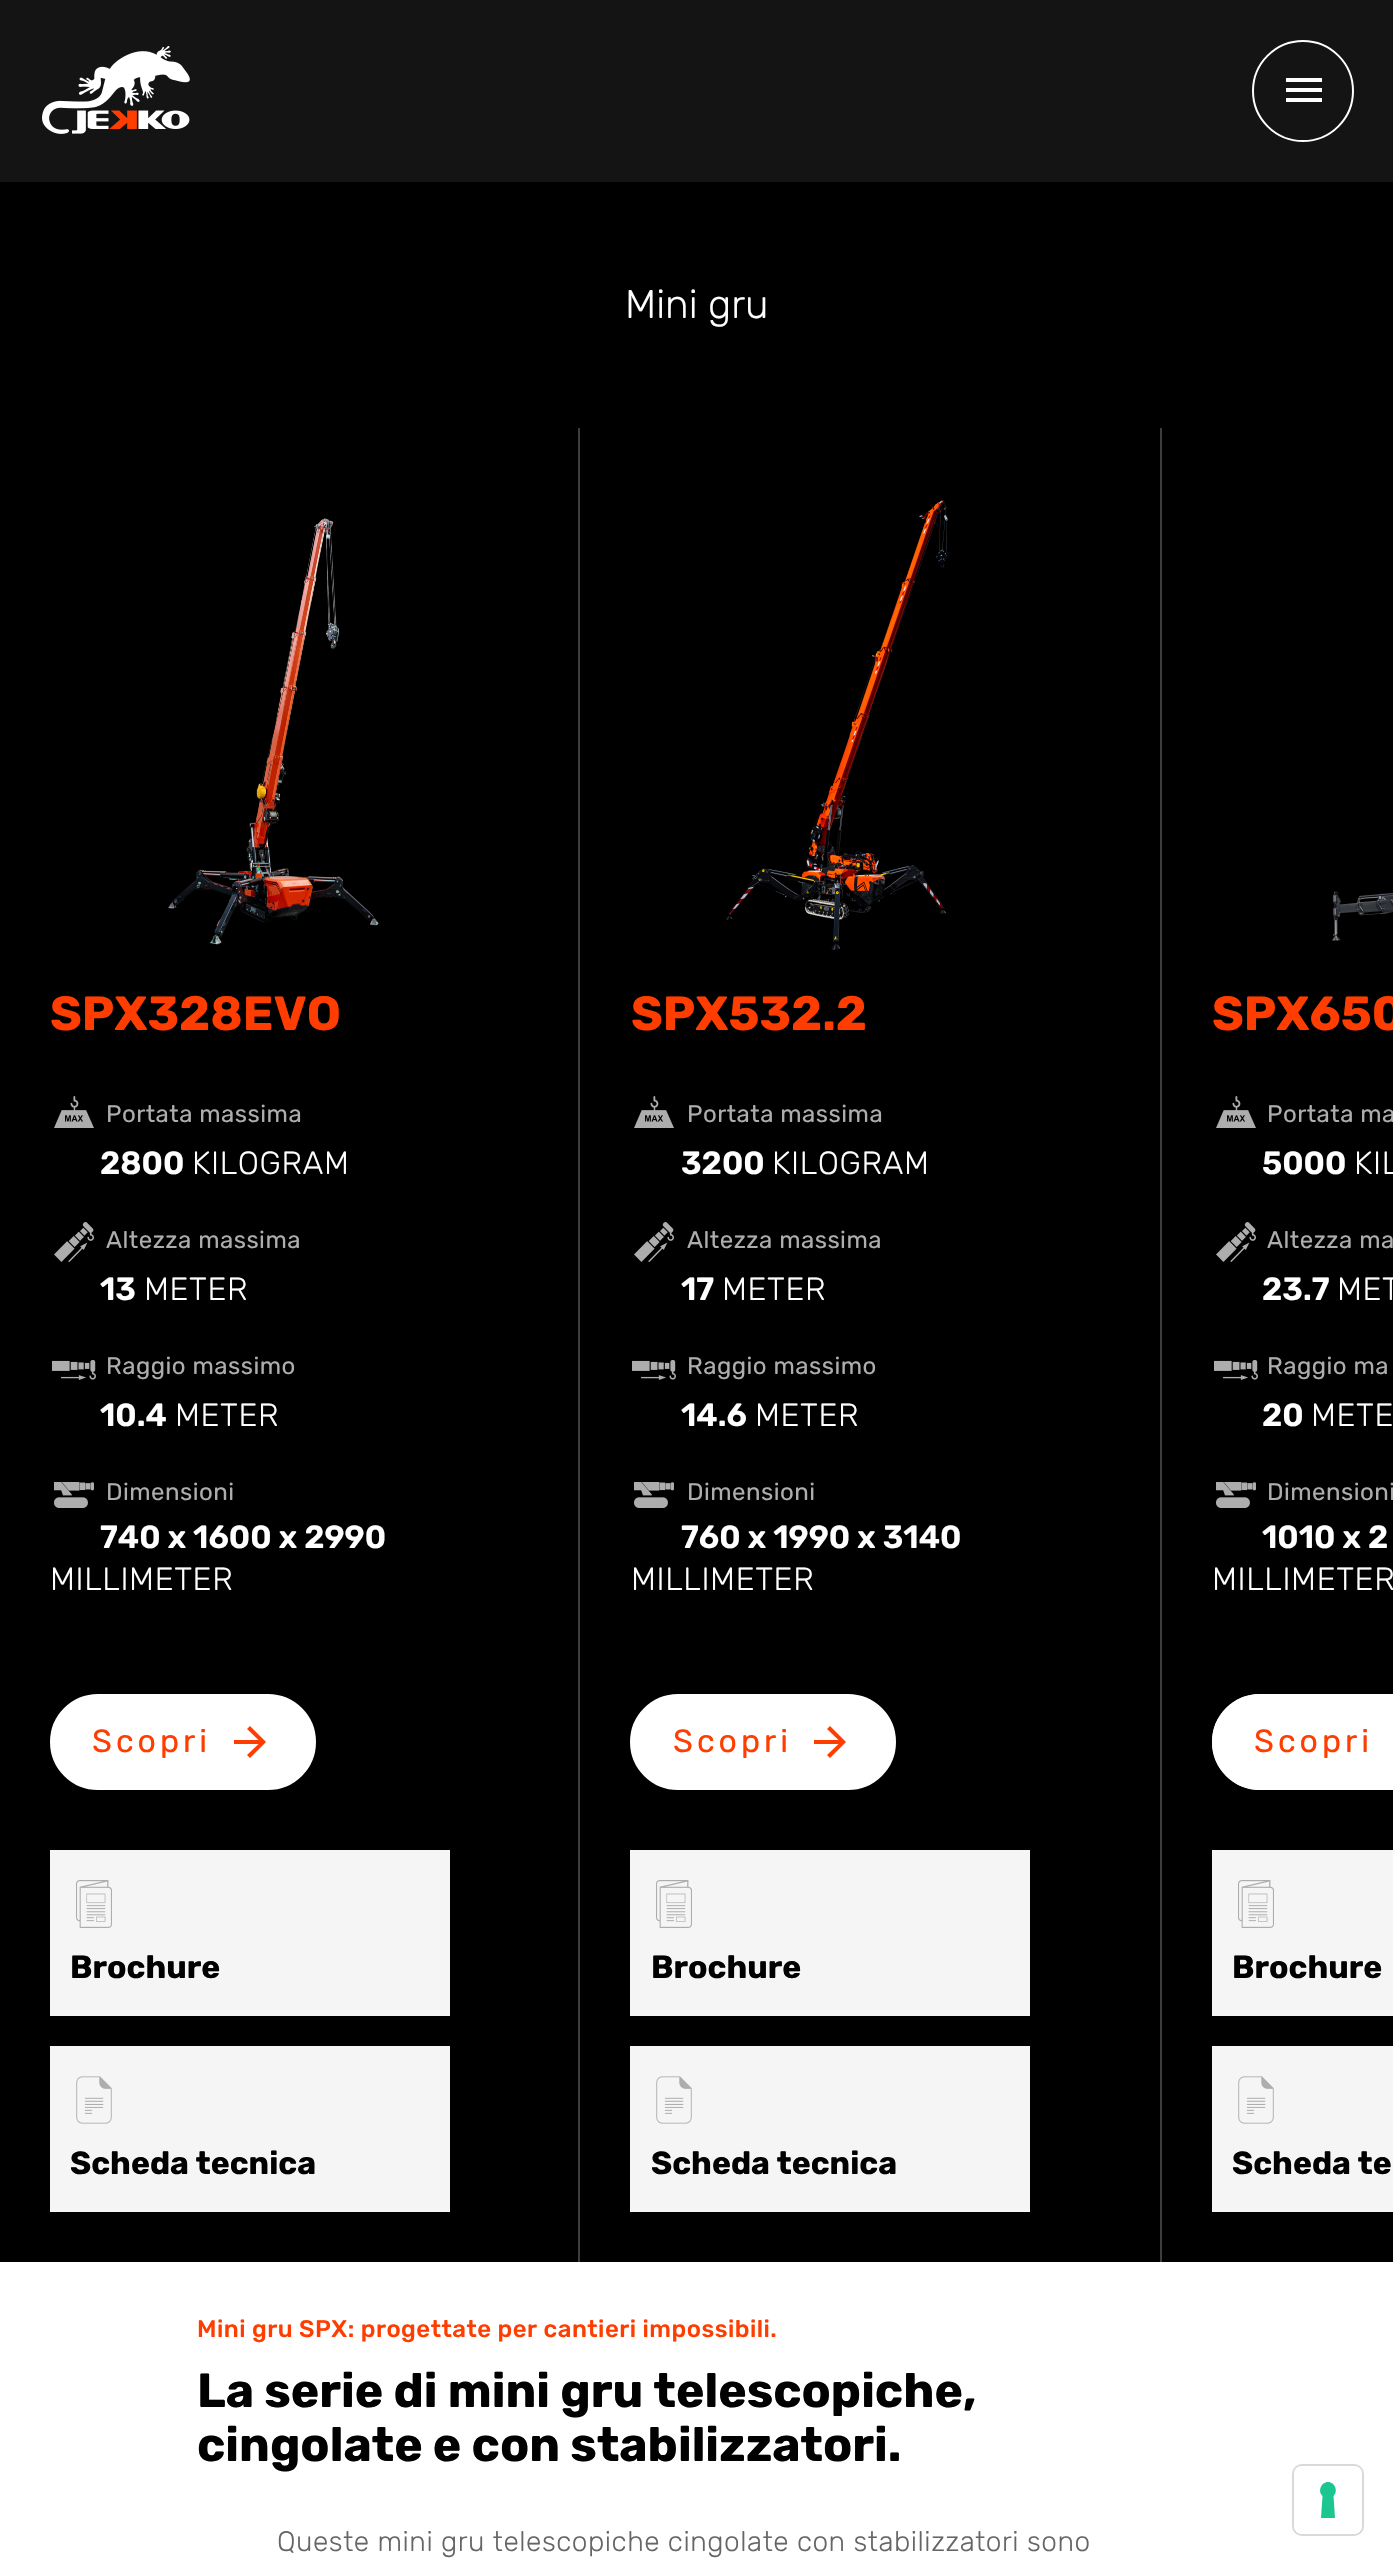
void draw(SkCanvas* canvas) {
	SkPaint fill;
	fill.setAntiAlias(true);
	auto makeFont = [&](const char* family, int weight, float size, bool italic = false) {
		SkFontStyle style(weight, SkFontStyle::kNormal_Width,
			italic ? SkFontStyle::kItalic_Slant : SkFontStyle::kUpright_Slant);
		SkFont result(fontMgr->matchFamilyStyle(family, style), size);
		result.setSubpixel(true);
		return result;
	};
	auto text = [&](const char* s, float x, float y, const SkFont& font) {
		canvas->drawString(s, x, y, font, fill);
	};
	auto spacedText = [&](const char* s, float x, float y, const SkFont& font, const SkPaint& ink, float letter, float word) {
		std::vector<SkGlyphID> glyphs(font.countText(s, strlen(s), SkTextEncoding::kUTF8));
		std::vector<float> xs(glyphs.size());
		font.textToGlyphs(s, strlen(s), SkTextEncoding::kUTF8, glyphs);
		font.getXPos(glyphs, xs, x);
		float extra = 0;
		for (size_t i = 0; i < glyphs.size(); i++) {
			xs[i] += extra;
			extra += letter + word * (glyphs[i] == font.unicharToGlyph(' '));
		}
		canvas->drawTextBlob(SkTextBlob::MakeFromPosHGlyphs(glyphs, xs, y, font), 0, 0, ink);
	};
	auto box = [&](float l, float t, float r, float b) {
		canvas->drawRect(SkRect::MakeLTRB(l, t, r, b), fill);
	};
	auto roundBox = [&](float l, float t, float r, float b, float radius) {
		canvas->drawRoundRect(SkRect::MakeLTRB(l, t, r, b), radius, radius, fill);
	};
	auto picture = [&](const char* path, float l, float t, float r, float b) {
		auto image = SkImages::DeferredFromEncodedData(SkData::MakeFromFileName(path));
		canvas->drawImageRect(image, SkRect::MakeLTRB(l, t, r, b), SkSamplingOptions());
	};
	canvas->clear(0xFFFFFFFF);
	fill.setColor(0xFF141414);
	box(0, 0, 1393, 182);
	picture("image0.png", 42, 46, 190, 134);
	fill.setStyle(SkPaint::kStroke_Style);
	fill.setStrokeWidth(2);
	fill.setColor(0xFFFFFFFF);
	canvas->drawCircle(1303, 91, 50, fill);
	fill.setStyle(SkPaint::kFill_Style);
	box(1286, 88, 1322, 92);
	box(1286, 78, 1322, 82);
	box(1286, 98, 1322, 102);
	fill.setColor(0xFF000000);
	box(0, 182, 1393, 2262);
	fill.setColor(0xFF3D3D3D);
	box(578, 428, 580, 2262);
	picture("image1.png", 168, 518, 379, 945);
	picture("image2.png", 54, 1096, 94, 1128);
	picture("image3.png", 54, 1222, 94, 1262);
	picture("image4.png", 52, 1360, 96, 1380);
	picture("image5.png", 54, 1482, 94, 1508);
	fill.setColor(0xFFFFFFFF);
	canvas->drawRoundRect(SkRect::MakeLTRB(51, 1695, 315, 1789), 47, 47, fill);
	fill.setStyle(SkPaint::kStroke_Style);
	canvas->drawRoundRect(SkRect::MakeLTRB(51, 1695, 315, 1789), 47, 47, fill);
	fill.setStyle(SkPaint::kFill_Style);
	fill.setColor(0xFFFF3D00);
	canvas->drawPath(SkPathBuilder().moveTo(250, 1726).lineTo(247, 1729).lineTo(258.5f, 1740).lineTo(234, 1740).lineTo(234, 1744).lineTo(258.5f, 1744).lineTo(247, 1755).lineTo(250, 1758).lineTo(266, 1742).close().detach(), fill);
	fill.setColor(0xFFF5F5F5);
	box(50, 1850, 450, 2016);
	picture("image6.png", 76, 1880, 112, 1928);
	box(50, 2046, 450, 2212);
	picture("image7.png", 76, 2076, 112, 2124);
	fill.setColor(0xFF3D3D3D);
	box(1160, 428, 1162, 2262);
	picture("image8.png", 726, 500, 949, 950);
	picture("image2.png", 634, 1096, 674, 1128);
	picture("image3.png", 634, 1222, 674, 1262);
	picture("image4.png", 632, 1360, 676, 1380);
	picture("image5.png", 634, 1482, 674, 1508);
	fill.setColor(0xFFFFFFFF);
	canvas->drawRoundRect(SkRect::MakeLTRB(631, 1695, 895, 1789), 47, 47, fill);
	fill.setStyle(SkPaint::kStroke_Style);
	canvas->drawRoundRect(SkRect::MakeLTRB(631, 1695, 895, 1789), 47, 47, fill);
	fill.setStyle(SkPaint::kFill_Style);
	fill.setColor(0xFFFF3D00);
	canvas->drawPath(SkPathBuilder().moveTo(830, 1726).lineTo(827, 1729).lineTo(838.5f, 1740).lineTo(814, 1740).lineTo(814, 1744).lineTo(838.5f, 1744).lineTo(827, 1755).lineTo(830, 1758).lineTo(846, 1742).close().detach(), fill);
	fill.setColor(0xFFF5F5F5);
	box(630, 1850, 1030, 2016);
	picture("image6.png", 656, 1880, 692, 1928);
	box(630, 2046, 1030, 2212);
	picture("image7.png", 656, 2076, 692, 2124);
	picture("image9.png", 1332, 891, 1393, 941);
	picture("image2.png", 1216, 1096, 1256, 1128);
	picture("image3.png", 1216, 1222, 1256, 1262);
	picture("image4.png", 1214, 1360, 1258, 1380);
	picture("image5.png", 1216, 1482, 1256, 1508);
	fill.setColor(0xFFFFFFFF);
	canvas->drawPath(SkPathBuilder().moveTo(1260, 1694).lineTo(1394, 1694).lineTo(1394, 1790).lineTo(1260, 1790).cubicTo(1233.5f, 1790, 1212, 1768.5f, 1212, 1742).cubicTo(1212, 1715.5f, 1233.5f, 1694, 1260, 1694).close().detach(), fill);
	fill.setStyle(SkPaint::kStroke_Style);
	canvas->drawRoundRect(SkRect::MakeLTRB(1213, 1695, 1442, 1789), 47, 47, fill);
	fill.setStyle(SkPaint::kFill_Style);
	fill.setColor(0xFFF5F5F5);
	box(1212, 1850, 1393, 2016);
	picture("image6.png", 1238, 1880, 1274, 1928);
	box(1212, 2046, 1393, 2212);
	picture("image7.png", 1238, 2076, 1274, 2124);
	fill.setStyle(SkPaint::kStroke_Style);
	fill.setColor(0xFFD9D9D9);
	canvas->drawRoundRect(SkRect::MakeLTRB(1293, 2465, 1363, 2535), 9, 9, fill);
	fill.setStyle(SkPaint::kFill_Style);
	fill.setColor(0xFFFFFFFF);
	roundBox(1294, 2466, 1362, 2534, 8);
	fill.setColor(0xFF1CC691);
	canvas->drawPath(SkPathBuilder(SkPathFillType::kEvenOdd).moveTo(1328, 2482).cubicTo(1335, 2482, 1338.5f, 2491.5f, 1333.5f, 2496).lineTo(1335, 2518).lineTo(1321, 2518).lineTo(1322.5f, 2496).cubicTo(1317.5f, 2491.5f, 1321, 2482, 1328, 2482).close().detach(), fill);
	auto font1 = makeFont("Rubik", 300, 40);
	fill.setColor(0xFFFFFFFF);
	text("Mini gru", 625, 318, font1);
	auto font2 = makeFont("Rubik", 700, 48);
	fill.setColor(0xFFFF3D00);
	text("SPX328EVO", 50, 1030, font2);
	auto font3 = makeFont("Rubik", 400, 24);
	fill.setColor(0xFFADADAD);
	spacedText("Portata massima", 106, 1122, font3, fill, 0.48f, 0);
	auto font4 = makeFont("Rubik", 600, 32);
	fill.setColor(0xFFFFFFFF);
	text("2800", 100, 1174, font4);
	auto font5 = makeFont("Rubik", 300, 32);
	spacedText("KILOGRAM", 192, 1174, font5, fill, 0.6f, 0);
	fill.setColor(0xFFADADAD);
	spacedText("Altezza massima", 106, 1248, font3, fill, 0.48f, 0);
	fill.setColor(0xFFFFFFFF);
	text("13", 100, 1300, font4);
	spacedText("METER", 144, 1300, font5, fill, 0.6f, 0);
	fill.setColor(0xFFADADAD);
	spacedText("Raggio massimo", 106, 1374, font3, fill, 0.48f, 0);
	fill.setColor(0xFFFFFFFF);
	text("10.4", 100, 1426, font4);
	spacedText("METER", 175, 1426, font5, fill, 0.6f, 0);
	fill.setColor(0xFFADADAD);
	spacedText("Dimensioni", 106, 1500, font3, fill, 0.48f, 0);
	fill.setColor(0xFFFFFFFF);
	text("740 x 1600 x 2990", 100, 1548, font4);
	spacedText("MILLIMETER", 50, 1590, font5, fill, 0.6f, 0);
	auto font6 = makeFont("Rubik", 400, 32);
	fill.setColor(0xFFFF3D00);
	spacedText("Scopri", 92, 1752, font6, fill, 4, 0);
	auto font7 = makeFont("Rubik", 700, 32);
	fill.setColor(0xFF010101);
	text("Brochure", 70, 1978, font7);
	text("Scheda tecnica", 70, 2174, font7);
	fill.setColor(0xFFFF3D00);
	text("SPX532.2", 631, 1030, font2);
	fill.setColor(0xFFADADAD);
	spacedText("Portata massima", 687, 1122, font3, fill, 0.48f, 0);
	fill.setColor(0xFFFFFFFF);
	text("3200", 681, 1174, font4);
	spacedText("KILOGRAM", 772, 1174, font5, fill, 0.6f, 0);
	fill.setColor(0xFFADADAD);
	spacedText("Altezza massima", 687, 1248, font3, fill, 0.48f, 0);
	fill.setColor(0xFFFFFFFF);
	text("17", 681, 1300, font4);
	spacedText("METER", 722, 1300, font5, fill, 0.6f, 0);
	fill.setColor(0xFFADADAD);
	spacedText("Raggio massimo", 687, 1374, font3, fill, 0.48f, 0);
	fill.setColor(0xFFFFFFFF);
	text("14.6", 681, 1426, font4);
	spacedText("METER", 755, 1426, font5, fill, 0.6f, 0);
	fill.setColor(0xFFADADAD);
	spacedText("Dimensioni", 687, 1500, font3, fill, 0.48f, 0);
	fill.setColor(0xFFFFFFFF);
	text("760 x 1990 x 3140", 681, 1548, font4);
	spacedText("MILLIMETER", 631, 1590, font5, fill, 0.6f, 0);
	fill.setColor(0xFFFF3D00);
	spacedText("Scopri", 673, 1752, font6, fill, 4, 0);
	fill.setColor(0xFF010101);
	text("Brochure", 651, 1978, font7);
	text("Scheda tecnica", 651, 2174, font7);
	fill.setColor(0xFFFF3D00);
	text("SPX650", 1212, 1030, font2);
	fill.setColor(0xFFADADAD);
	spacedText("Portata ma", 1267, 1122, font3, fill, 0.48f, 0);
	fill.setColor(0xFFFFFFFF);
	text("5000", 1262, 1174, font4);
	spacedText("KIL", 1354, 1174, font5, fill, 0.6f, 0);
	fill.setColor(0xFFADADAD);
	spacedText("Altezza ma", 1267, 1248, font3, fill, 0.48f, 0);
	fill.setColor(0xFFFFFFFF);
	text("23.7", 1262, 1300, font4);
	spacedText("MET", 1337, 1300, font5, fill, 0.6f, 0);
	fill.setColor(0xFFADADAD);
	spacedText("Raggio ma", 1267, 1374, font3, fill, 0.48f, 0);
	fill.setColor(0xFFFFFFFF);
	text("20", 1262, 1426, font4);
	spacedText("METE", 1311, 1426, font5, fill, 0.6f, 0);
	fill.setColor(0xFFADADAD);
	spacedText("Dimensioni", 1267, 1500, font3, fill, 0.48f, 0);
	fill.setColor(0xFFFFFFFF);
	text("1010 x 2", 1262, 1548, font4);
	spacedText("MILLIMETER", 1212, 1590, font5, fill, 0.6f, 0);
	fill.setColor(0xFFFF3D00);
	spacedText("Scopri", 1254, 1752, font6, fill, 4, 0);
	fill.setColor(0xFF010101);
	text("Brochure", 1232, 1978, font7);
	text("Scheda te", 1232, 2174, font7);
	auto font8 = makeFont("Rubik", 500, 24);
	fill.setColor(0xFFFF3D00);
	spacedText("Mini gru SPX: progettate per cantieri impossibili.", 197, 2337, font8, fill, 0.48f, 0);
	fill.setColor(0xFF010101);
	text("La serie di mini gru telescopiche,", 197, 2407, font2);
	text("cingolate e con stabilizzatori.", 197, 2461, font2);
	auto font9 = makeFont("Rubik", 300, 28);
	fill.setColor(0xFF666666);
	spacedText("Queste mini gru telescopiche cingolate con stabilizzatori sono", 277, 2551, font9, fill, 0.55f, 0);
}
